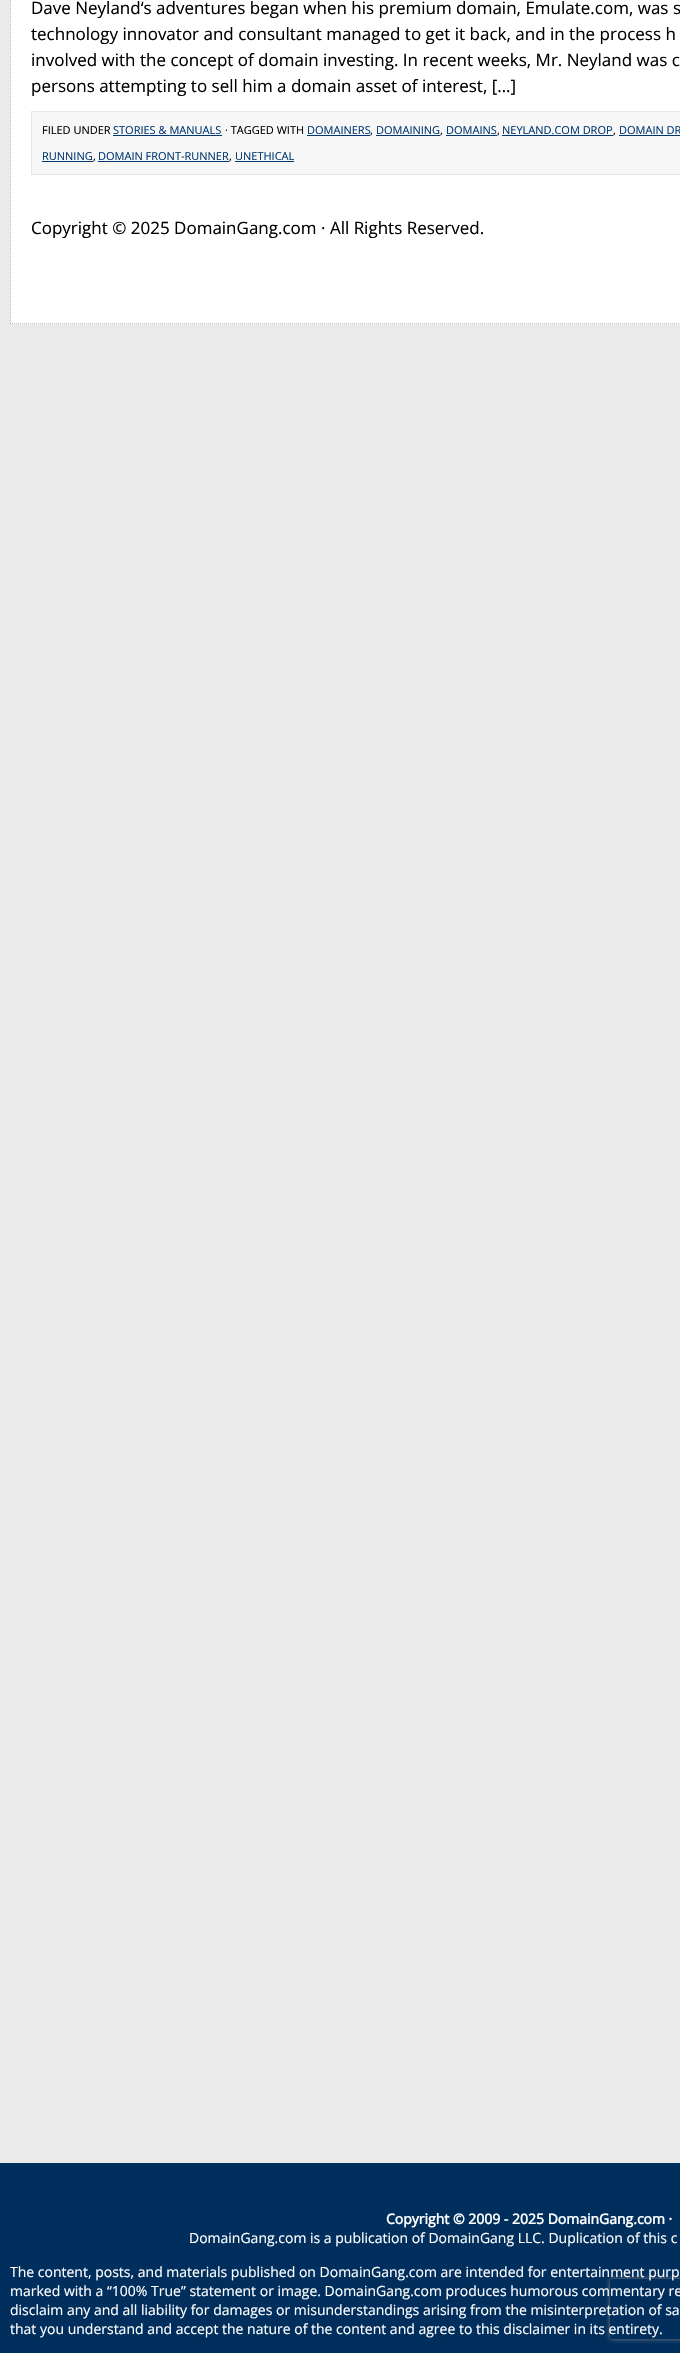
void draw(SkCanvas* canvas) {
	SkPaint fill;
	fill.setAntiAlias(true);
	auto makeFont = [&](const char* family, int weight, float size, bool italic = false) {
		SkFontStyle style(weight, SkFontStyle::kNormal_Width,
			italic ? SkFontStyle::kItalic_Slant : SkFontStyle::kUpright_Slant);
		SkFont result(fontMgr->matchFamilyStyle(family, style), size);
		result.setSubpixel(true);
		return result;
	};
	auto text = [&](const char* s, float x, float y, const SkFont& font) {
		canvas->drawString(s, x, y, font, fill);
	};
	auto box = [&](float l, float t, float r, float b) {
		canvas->drawRect(SkRect::MakeLTRB(l, t, r, b), fill);
	};
	canvas->clear(0xFF002E5D);
	fill.setColor(0xFFEAEAEA);
	box(0, 0, 680, 2163);
	fill.setColor(0xFFFFFFFF);
	box(10, 0, 680, 324);
	fill.setStyle(SkPaint::kStroke_Style);
	fill.setStrokeWidth(1);
	fill.setColor(0xFFC0C0C0);
	fill.setPathEffect(SkDashPathEffect::Make({{1, 1}}, 0));
	canvas->drawPath(SkPathBuilder().moveTo(10, 323.5f).lineTo(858, 323.5f).detach(), fill);
	fill.setPathEffect(nullptr);
	fill.setPathEffect(SkDashPathEffect::Make({{1, 1}}, 0));
	canvas->drawPath(SkPathBuilder().moveTo(10.5f, -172).lineTo(10.5f, 324).detach(), fill);
	fill.setPathEffect(nullptr);
	fill.setStyle(SkPaint::kFill_Style);
	fill.setColor(0xFFF7F7F7);
	canvas->drawRect(SkRect::MakeLTRB(31.5f, 111.5f, 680.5f, 174.5f), fill);
	fill.setStyle(SkPaint::kStroke_Style);
	fill.setColor(0xFFE6E6E6);
	canvas->drawRect(SkRect::MakeLTRB(31.5f, 111.5f, 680.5f, 174.5f), fill);
	fill.setStyle(SkPaint::kFill_Style);
	fill.setColor(0xFF003771);
	box(113, 135, 222, 136);
	box(307, 135, 370, 136);
	box(376, 135, 440, 136);
	box(446, 135, 497, 136);
	box(502, 135, 613, 136);
	box(619, 135, 680, 136);
	box(42, 161, 93, 162);
	box(98, 161, 229, 162);
	box(235, 161, 294, 162);
	canvas->save();
	canvas->clipPath(SkPathBuilder(SkPathFillType::kEvenOdd).moveTo(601, 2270).lineTo(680, 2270).lineTo(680, 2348).lineTo(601, 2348).close().moveTo(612, 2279).lineTo(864, 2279).cubicTo(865, 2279, 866, 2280, 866, 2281).lineTo(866, 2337).cubicTo(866, 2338, 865, 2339, 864, 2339).lineTo(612, 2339).cubicTo(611, 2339, 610, 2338, 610, 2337).lineTo(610, 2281).cubicTo(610, 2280, 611, 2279, 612, 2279).close().detach(), true);
	fill.setColor(0xFF808080);
	fill.setMaskFilter(SkMaskFilter::MakeBlur(kNormal_SkBlurStyle, 2.5f));
	canvas->drawRoundRect(SkRect::MakeLTRB(610, 2279, 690, 2339), 2, 2, fill);
	fill.setMaskFilter(nullptr);
	canvas->restore();
	auto font1 = makeFont("Open Sans", 400, 17);
	fill.setColor(0xFF000000);
	text("Dave Neyland‘s adventures began when his premium domain, Emulate.com, was s", 31, 14, font1);
	text("technology innovator and consultant managed to get it back, and in the process h", 31, 40, font1);
	text("involved with the concept of domain investing. In recent weeks, Mr. Neyland was c", 31, 66, font1);
	text("persons attempting to sell him a domain asset of interest, […]", 31, 92, font1);
	auto font2 = makeFont("Open Sans", 400, 11);
	text("FILED UNDER", 42, 134, font2);
	fill.setColor(0xFF003771);
	text("STORIES & MANUALS", 113, 134, font2);
	fill.setColor(0xFF000000);
	text("· TAGGED WITH", 225, 134, font2);
	fill.setColor(0xFF003771);
	text("DOMAINERS", 307, 134, font2);
	fill.setColor(0xFF000000);
	text(",", 370, 134, font2);
	fill.setColor(0xFF003771);
	text("DOMAINING", 376, 134, font2);
	fill.setColor(0xFF000000);
	text(",", 440, 134, font2);
	fill.setColor(0xFF003771);
	text("DOMAINS", 446, 134, font2);
	fill.setColor(0xFF000000);
	text(",", 497, 134, font2);
	fill.setColor(0xFF003771);
	text("NEYLAND.COM DROP", 502, 134, font2);
	fill.setColor(0xFF000000);
	text(",", 613, 134, font2);
	fill.setColor(0xFF003771);
	text("DOMAIN DR", 619, 134, font2);
	text("RUNNING", 42, 160, font2);
	fill.setColor(0xFF000000);
	text(",", 93, 160, font2);
	fill.setColor(0xFF003771);
	text("DOMAIN FRONT-RUNNER", 98, 160, font2);
	fill.setColor(0xFF000000);
	text(",", 229, 160, font2);
	fill.setColor(0xFF003771);
	text("UNETHICAL", 235, 160, font2);
	fill.setColor(0xFF000000);
	text("Copyright © 2025 DomainGang.com · All Rights Reserved.", 31, 234, font1);
	auto font3 = makeFont("Open Sans", 700, 14);
	fill.setColor(0xFFFFFFFF);
	text("Copyright © 2009 - 2025 DomainGang.com ·", 386, 2224, font3);
	auto font4 = makeFont("Open Sans", 400, 14);
	text("DomainGang.com is a publication of DomainGang LLC. Duplication of this c", 189, 2243, font4);
	text("The content, posts, and materials published on DomainGang.com are intended for entertainment purp", 10, 2277, font4);
	text("marked with a “100% True” statement or image. DomainGang.com produces humorous commentary re", 10, 2296, font4);
	text("disclaim any and all liability for damages or misunderstandings arising from the misinterpretation of sa", 10, 2315, font4);
	text("that you understand and accept the nature of the content and agree to this disclaimer in its entirety.", 10, 2334, font4);
}
